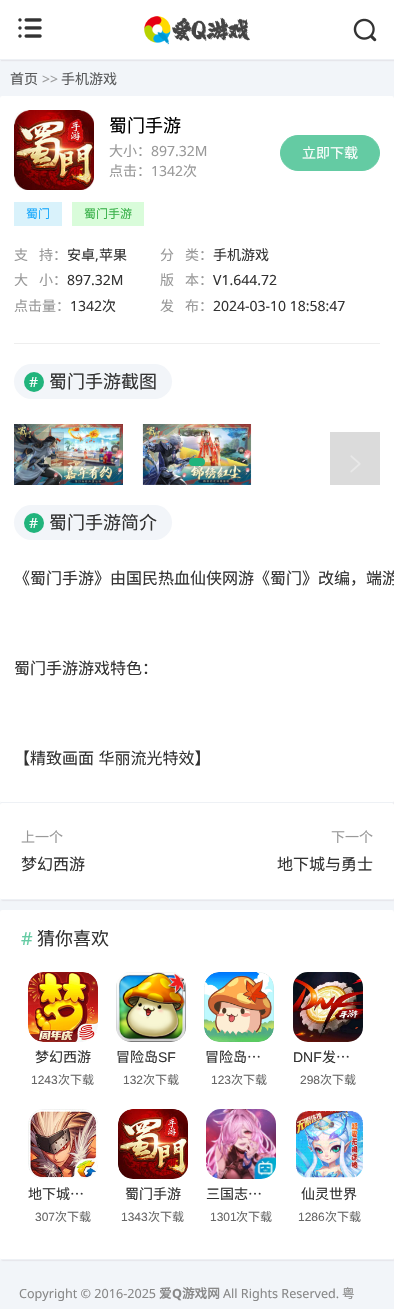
void draw(SkCanvas* canvas) {
	SkPaint fill;
	fill.setAntiAlias(true);
	auto makeFont = [&](const char* family, int weight, float size, bool italic = false) {
		SkFontStyle style(weight, SkFontStyle::kNormal_Width,
			italic ? SkFontStyle::kItalic_Slant : SkFontStyle::kUpright_Slant);
		SkFont result(fontMgr->matchFamilyStyle(family, style), size);
		result.setSubpixel(true);
		return result;
	};
	auto text = [&](const char* s, float x, float y, const SkFont& font) {
		canvas->drawString(s, x, y, font, fill);
	};
	auto spacedText = [&](const char* s, float x, float y, const SkFont& font, const SkPaint& ink, float letter, float word) {
		std::vector<SkGlyphID> glyphs(font.countText(s, strlen(s), SkTextEncoding::kUTF8));
		std::vector<float> xs(glyphs.size());
		font.textToGlyphs(s, strlen(s), SkTextEncoding::kUTF8, glyphs);
		font.getXPos(glyphs, xs, x);
		float extra = 0;
		for (size_t i = 0; i < glyphs.size(); i++) {
			xs[i] += extra;
			extra += letter + word * (glyphs[i] == font.unicharToGlyph(' '));
		}
		canvas->drawTextBlob(SkTextBlob::MakeFromPosHGlyphs(glyphs, xs, y, font), 0, 0, ink);
	};
	auto box = [&](float l, float t, float r, float b) {
		canvas->drawRect(SkRect::MakeLTRB(l, t, r, b), fill);
	};
	auto roundBox = [&](float l, float t, float r, float b, float radius) {
		canvas->drawRoundRect(SkRect::MakeLTRB(l, t, r, b), radius, radius, fill);
	};
	auto picture = [&](const char* path, float l, float t, float r, float b) {
		auto image = SkImages::DeferredFromEncodedData(SkData::MakeFromFileName(path));
		canvas->drawImageRect(image, SkRect::MakeLTRB(l, t, r, b), SkSamplingOptions());
	};
	canvas->clear(0xFFF2F5F9);
	fill.setColor(0xFFE6E6EB);
	fill.setMaskFilter(SkMaskFilter::MakeBlur(kNormal_SkBlurStyle, 0.5f));
	canvas->drawRect(SkRect::MakeLTRB(1, 1, 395, 61), fill);
	fill.setMaskFilter(nullptr);
	fill.setColor(0xFFFFFFFF);
	box(0, 0, 394, 59);
	fill.setColor(0xFFEEF1F5);
	box(0, 59, 394, 60);
	picture("image0.png", 18, 18, 42, 38);
	picture("image1.png", 144, 16, 250, 45);
	picture("image2.png", 353, 18, 377, 42);
	fill.setColor(0xFFE6E6EB);
	fill.setMaskFilter(SkMaskFilter::MakeBlur(kNormal_SkBlurStyle, 0.5f));
	canvas->drawRoundRect(SkRect::MakeLTRB(1, 97, 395, 804), 2, 2, fill);
	fill.setMaskFilter(nullptr);
	fill.setColor(0xFFFFFFFF);
	roundBox(0, 96, 394, 803, 2);
	fill.setColor(0xFFEEF1F5);
	box(1, 802, 393, 803);
	fill.setColor(0xFFEEEEEE);
	box(14, 343, 380, 344);
	fill.setColor(0xFFD9F2FB);
	box(14, 202, 62, 226);
	fill.setColor(0xFFD9FCDA);
	box(72, 202, 144, 226);
	picture("image3.png", 14, 110, 94, 190);
	fill.setColor(0xFF64CBA3);
	canvas->drawRoundRect(SkRect::MakeLTRB(280.5f, 135.5f, 379.5f, 170.5f), 17.5f, 17.5f, fill);
	fill.setStyle(SkPaint::kStroke_Style);
	fill.setStrokeWidth(1);
	canvas->drawRoundRect(SkRect::MakeLTRB(280.5f, 135.5f, 379.5f, 170.5f), 17.5f, 17.5f, fill);
	fill.setStyle(SkPaint::kFill_Style);
	fill.setColor(0xFFF2F5F9);
	roundBox(14, 364, 172, 399, 17.5f);
	fill.setColor(0xFF21B47C);
	canvas->drawCircle(34, 382, 10, fill);
	picture("image4.png", 14, 424, 123, 485);
	picture("image5.png", 142, 424, 252, 485);
	fill.setColor(0x24000000);
	box(14, 432, 64, 485);
	picture("image6.png", 34, 454, 45, 473);
	fill.setColor(0xFF21B47C);
	roundBox(189, 458, 205, 466, 4);
	fill.setColor(0xFFDBDBDB);
	box(330, 432, 380, 485);
	picture("image7.png", 350, 455, 361, 473);
	fill.setColor(0xFFF2F5F9);
	roundBox(14, 505, 172, 540, 17.5f);
	fill.setColor(0xFF21B47C);
	canvas->drawCircle(34, 523, 10, fill);
	fill.setColor(0xFFE6E6EB);
	fill.setMaskFilter(SkMaskFilter::MakeBlur(kNormal_SkBlurStyle, 0.5f));
	canvas->drawRoundRect(SkRect::MakeLTRB(1, 804, 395, 901), 2, 2, fill);
	fill.setMaskFilter(nullptr);
	fill.setColor(0xFFFFFFFF);
	roundBox(0, 803, 394, 900, 2);
	fill.setColor(0xFFEEF1F5);
	box(1, 899, 393, 900);
	fill.setColor(0xFFE6E6EB);
	fill.setMaskFilter(SkMaskFilter::MakeBlur(kNormal_SkBlurStyle, 0.5f));
	canvas->drawRoundRect(SkRect::MakeLTRB(1, 911, 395, 1261), 2, 2, fill);
	fill.setMaskFilter(nullptr);
	fill.setColor(0xFFFFFFFF);
	roundBox(0, 910, 394, 1260, 2);
	fill.setColor(0xFFEEF1F5);
	box(1, 1259, 393, 1260);
	picture("image8.png", 28, 972, 98, 1042);
	picture("image9.png", 116, 972, 186, 1042);
	picture("image10.png", 204, 972, 274, 1042);
	picture("image11.png", 293, 972, 363, 1042);
	picture("image12.png", 28, 1109, 98, 1179);
	picture("image13.png", 118, 1109, 188, 1179);
	picture("image14.png", 206, 1109, 276, 1179);
	picture("image15.png", 296, 1111, 363, 1178);
	auto font1 = makeFont("Noto Sans CJK SC", 400, 14);
	fill.setColor(0xFF595A5B);
	text("首页", 10, 84, font1);
	auto font2 = makeFont("Noto Sans", 400, 14);
	fill.setColor(0xFF9D9E9F);
	text(">>", 42, 84, font2);
	fill.setColor(0xFF595A5B);
	text("手机游戏", 61, 84, font1);
	auto font3 = makeFont("Noto Sans CJK SC", 400, 18);
	fill.setColor(0xFF000000);
	text("蜀门手游", 109, 132, font3);
	auto font4 = makeFont("Noto Sans CJK SC", 400, 12);
	fill.setColor(0xFF1AA9FB);
	text("蜀门", 26, 218, font4);
	fill.setColor(0xFF3AB14A);
	text("蜀门手游", 84, 218, font4);
	fill.setColor(0xFF999999);
	text("支", 14, 260, font1);
	text("持：", 39, 260, font1);
	fill.setColor(0xFF333333);
	text("安卓", 67, 260, font1);
	text(",", 95, 260, font2);
	text("苹果", 99, 260, font1);
	fill.setColor(0xFF999999);
	text("分", 160, 260, font1);
	text("类：", 185, 260, font1);
	fill.setColor(0xFF333333);
	text("手机游戏", 213, 260, font1);
	fill.setColor(0xFF999999);
	text("大", 14, 285, font1);
	text("小：", 39, 285, font1);
	fill.setColor(0xFF333333);
	text("897.32M", 67, 285, font2);
	fill.setColor(0xFF999999);
	text("版", 160, 285, font1);
	text("本：", 185, 285, font1);
	fill.setColor(0xFF333333);
	text("V1.644.72", 213, 285, font2);
	fill.setColor(0xFF999999);
	text("点击量：", 14, 311, font1);
	fill.setColor(0xFF333333);
	text("1342", 70, 311, font2);
	text("次", 102, 311, font1);
	fill.setColor(0xFF999999);
	text("发", 160, 311, font1);
	text("布：", 185, 311, font1);
	fill.setColor(0xFF333333);
	text("2024-03-10 18:58:47", 213, 311, font2);
	fill.setColor(0xFF999999);
	text("大小：", 109, 156, font1);
	text("897.32M", 151, 156, font2);
	fill.setColor(0xFFFFFFFF);
	text("立即下载", 302, 158, font1);
	fill.setColor(0xFF999999);
	text("点击：", 109, 176, font1);
	text("1342", 151, 176, font2);
	text("次", 183, 176, font1);
	fill.setColor(0xFFFFFFFF);
	text("#", 29, 387, font2);
	fill.setColor(0xFF333333);
	text("蜀门手游截图", 49, 388, font3);
	fill.setColor(0xFFFFFFFF);
	text("#", 29, 528, font2);
	fill.setColor(0xFF333333);
	text("蜀门手游简介", 49, 529, font3);
	auto font5 = makeFont("Noto Sans CJK SC", 400, 16);
	text("《蜀门手游》由国民热血仙侠网游《蜀门》改编，端游", 14, 584, font5);
	text("蜀门手游游戏特色：", 14, 674, font5);
	spacedText("【精致画面 华丽流光特效】", 14, 764, font5, fill, 0, 1);
	fill.setColor(0xFF999999);
	text("上一个", 21, 842, font1);
	fill.setColor(0xFF333333);
	text("梦幻西游", 21, 870, font5);
	fill.setColor(0xFF999999);
	text("下一个", 331, 842, font1);
	fill.setColor(0xFF333333);
	text("地下城与勇士", 277, 870, font5);
	auto font6 = makeFont("Noto Sans", 400, 18);
	fill.setColor(0xFF64CBA3);
	text("#", 21, 945, font6);
	fill.setColor(0xFF333333);
	text("猜你喜欢", 37, 945, font3);
	text("梦幻西游", 35, 1062, font1);
	auto font7 = makeFont("Liberation Sans", 400, 12);
	fill.setColor(0xFF666666);
	text("1243", 31, 1084, font7);
	text("次下载", 58, 1084, font4);
	fill.setColor(0xFF333333);
	text("冒险岛", 116, 1062, font1);
	auto font8 = makeFont("Liberation Sans", 400, 14);
	text("SF", 158, 1062, font8);
	fill.setColor(0xFF666666);
	text("132", 123, 1084, font7);
	text("次下载", 143, 1084, font4);
	fill.setColor(0xFF333333);
	text("冒险岛…", 205, 1062, font1);
	fill.setColor(0xFF666666);
	text("123", 211, 1084, font7);
	text("次下载", 231, 1084, font4);
	fill.setColor(0xFF333333);
	text("DNF", 293, 1062, font8);
	text("发…", 322, 1062, font1);
	fill.setColor(0xFF666666);
	text("298", 300, 1084, font7);
	text("次下载", 320, 1084, font4);
	fill.setColor(0xFF333333);
	text("地下城…", 28, 1199, font1);
	fill.setColor(0xFF666666);
	text("307", 35, 1221, font7);
	text("次下载", 55, 1221, font4);
	fill.setColor(0xFF333333);
	text("蜀门手游", 125, 1199, font1);
	fill.setColor(0xFF666666);
	text("1343", 121, 1221, font7);
	text("次下载", 148, 1221, font4);
	fill.setColor(0xFF333333);
	text("三国志…", 206, 1199, font1);
	fill.setColor(0xFF666666);
	text("1301", 210, 1221, font7);
	text("次下载", 236, 1221, font4);
	fill.setColor(0xFF333333);
	text("仙灵世界", 301, 1199, font1);
	fill.setColor(0xFF666666);
	text("1286", 298, 1221, font7);
	text("次下载", 325, 1221, font4);
	auto font9 = makeFont("Noto Sans", 400, 12.6f);
	fill.setColor(0xFF888888);
	text("Copyright © 2016-2025", 19, 1298, font9);
	auto font10 = makeFont("Noto Sans CJK SC", 700, 12.6f);
	text("爱", 159, 1298, font10);
	auto font11 = makeFont("Noto Sans", 700, 12.6f);
	text("Q", 172, 1298, font11);
	text("游戏网", 182, 1298, font10);
	text("All Rights Reserved.", 223, 1298, font9);
	auto font12 = makeFont("Noto Sans CJK SC", 400, 12.6f);
	text("粤", 342, 1298, font12);
}
